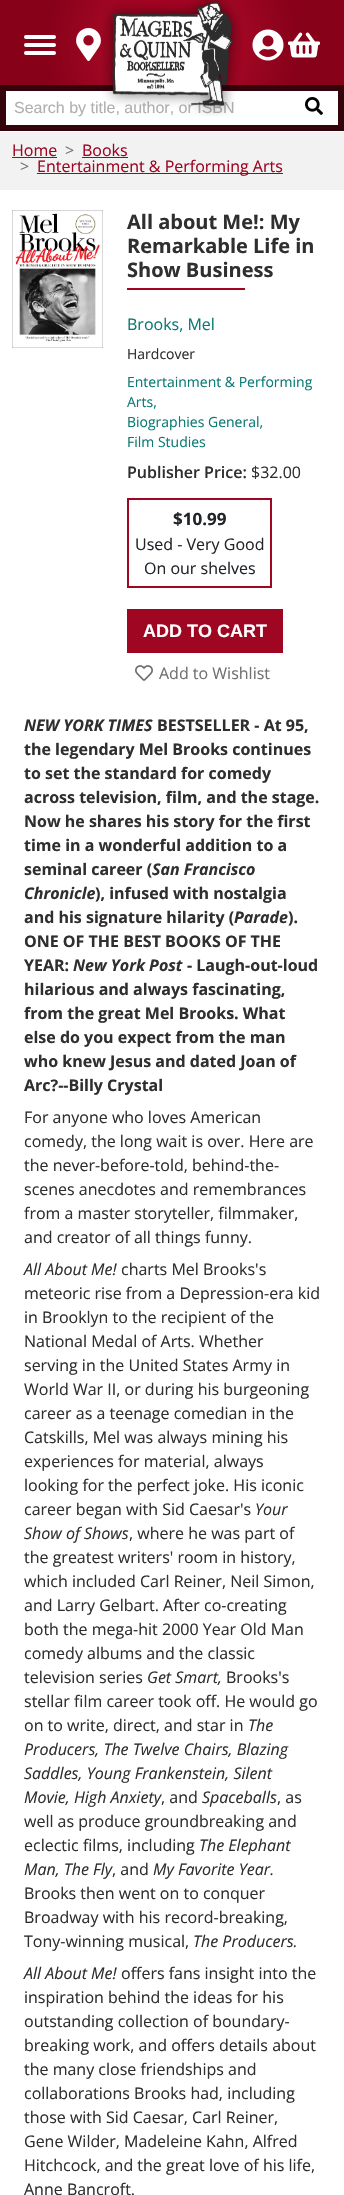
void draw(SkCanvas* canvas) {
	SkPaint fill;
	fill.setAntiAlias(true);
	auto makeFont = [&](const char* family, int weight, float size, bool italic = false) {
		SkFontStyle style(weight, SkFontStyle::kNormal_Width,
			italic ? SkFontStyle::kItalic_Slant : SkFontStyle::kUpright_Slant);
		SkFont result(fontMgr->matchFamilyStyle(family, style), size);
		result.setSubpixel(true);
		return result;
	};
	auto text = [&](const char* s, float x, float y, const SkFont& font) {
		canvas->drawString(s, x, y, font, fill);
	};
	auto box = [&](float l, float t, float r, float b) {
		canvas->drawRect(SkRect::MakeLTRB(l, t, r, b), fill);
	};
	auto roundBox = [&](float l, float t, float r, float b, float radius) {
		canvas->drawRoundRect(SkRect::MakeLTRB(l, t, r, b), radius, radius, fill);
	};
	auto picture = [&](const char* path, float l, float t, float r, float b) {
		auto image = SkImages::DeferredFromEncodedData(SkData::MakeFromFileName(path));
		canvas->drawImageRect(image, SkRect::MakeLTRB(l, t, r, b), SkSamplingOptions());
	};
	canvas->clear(0xFFFFFFFF);
	{
		const SkColor colors[] = {0xFFA40220, 0xFF9E0622, 0xFF870119, 0xFF870119};
		const float stops[] = {0.17f, 0.43f, 0.71f, 0.95f};
		fill.setShader(SkGradientShader::MakeRadial({172, 45}, 178, colors, stops, 4, SkTileMode::kClamp));
		fill.setAlpha(255);
	}
	box(0, 0, 344, 85);
	fill.setShader(nullptr);
	fill.setColor(0xFFFFFFFF);
	roundBox(24, 35, 56, 39, 2);
	roundBox(24, 43, 56, 47, 2);
	roundBox(24, 51, 56, 55, 2);
	picture("image0.png", 76, 28, 101, 61);
	picture("image2.png", 252, 29, 284, 61);
	picture("image3.png", 288, 32, 320, 58);
	fill.setColor(0xFF34030C);
	box(0, 85, 344, 131);
	fill.setColor(0xFFFFFFFF);
	box(6, 91, 338, 125);
	picture("image4.png", 305, 97, 323, 115);
	fill.setColor(0xFFF2F2F2);
	box(0, 132, 344, 190);
	fill.setColor(0xFF9E0622);
	box(12, 157, 57, 158);
	box(82, 157, 128, 158);
	box(37, 173, 283, 174);
	picture("image5.png", 12, 210, 103, 348);
	box(127, 288, 245, 290);
	fill.setStyle(SkPaint::kStroke_Style);
	fill.setStrokeWidth(2);
	canvas->drawRect(SkRect::MakeLTRB(128, 499, 271, 587), fill);
	fill.setStyle(SkPaint::kFill_Style);
	box(127, 609, 283, 653);
	picture("image6.png", 135, 665, 153, 681);
	auto font1 = makeFont("Liberation Sans", 400, 16);
	fill.setColor(0xFFB0B0B0);
	text("Search by title, author, or ISBN", 14, 113, font1);
	picture("image1.png", 102, 0, 242, 116);
	auto font2 = makeFont("Open Sans", 400, 16);
	fill.setColor(0xFF9E0622);
	text("Home", 12, 156, font2);
	fill.setColor(0xFF6C757D);
	text(">", 65, 156, font2);
	fill.setColor(0xFF9E0622);
	text("Books", 82, 156, font2);
	fill.setColor(0xFF6C757D);
	text(">", 20, 172, font2);
	fill.setColor(0xFF9E0622);
	text("Entertainment & Performing Arts", 37, 172, font2);
	auto font3 = makeFont("Open Sans", 700, 20);
	fill.setColor(0xFF302E2F);
	text("All about Me!: My", 127, 229, font3);
	text("Remarkable Life in", 127, 253, font3);
	text("Show Business", 127, 277, font3);
	fill.setColor(0xFF0B7A75);
	text("Brooks, Mel", 127, 330, font2);
	auto font4 = makeFont("Open Sans", 400, 14);
	fill.setColor(0xFF302E2F);
	text("Hardcover", 127, 359, font4);
	fill.setColor(0xFF0B7A75);
	text("Entertainment & Performing", 127, 387, font4);
	text("Arts,", 127, 407, font4);
	text("Biographies General,", 127, 427, font4);
	text("Film Studies", 127, 447, font4);
	auto font5 = makeFont("Open Sans", 600, 16);
	fill.setColor(0xFF302E2F);
	text("Publisher Price:", 127, 478, font5);
	text("$32.00", 251, 478, font2);
	auto font6 = makeFont("Open Sans", 700, 17);
	fill.setColor(0xFF212529);
	text("$10.99", 173, 525, font6);
	text("Used - Very Good", 135, 550, font2);
	text("On our shelves", 144, 574, font2);
	auto font7 = makeFont("Liberation Sans", 700, 18);
	fill.setColor(0xFFFFFFFF);
	text("ADD TO CART", 143, 637, font7);
	fill.setColor(0xFF707070);
	text("Add to Wishlist", 159, 679, font2);
	auto font8 = makeFont("Open Sans", 700, 16, true);
	fill.setColor(0xFF302E2F);
	text("NEW YORK TIMES", 24, 731, font8);
	auto font9 = makeFont("Open Sans", 700, 16);
	text("BESTSELLER - At 95,", 157, 731, font9);
	text("the legendary Mel Brooks continues", 24, 755, font9);
	text("to set the standard for comedy", 24, 779, font9);
	text("across television, film, and the stage.", 24, 803, font9);
	text("Now he shares his story for the first", 24, 827, font9);
	text("time in a wonderful addition to a", 24, 851, font9);
	text("seminal career (", 24, 875, font9);
	text("San Francisco", 152, 875, font8);
	text("Chronicle", 24, 899, font8);
	text("), infused with nostalgia", 95, 899, font9);
	text("and his signature hilarity (", 24, 923, font9);
	text("Parade", 234, 923, font8);
	text(").", 288, 923, font9);
	text("ONE OF THE BEST BOOKS OF THE", 24, 947, font9);
	text("YEAR:", 24, 971, font9);
	text("New York Post", 73, 971, font8);
	text("- Laugh-out-loud", 187, 971, font9);
	text("hilarious and always fascinating,", 24, 995, font9);
	text("from the great Mel Brooks. What", 24, 1019, font9);
	text("else do you expect from the man", 24, 1043, font9);
	text("who knew Jesus and dated Joan of", 24, 1067, font9);
	text("Arc?--Billy Crystal", 24, 1091, font9);
	text("For anyone who loves American", 24, 1123, font2);
	text("comedy, the long wait is over. Here are", 24, 1147, font2);
	text("the never-before-told, behind-the-", 24, 1171, font2);
	text("scenes anecdotes and remembrances", 24, 1195, font2);
	text("from a master storyteller, filmmaker,", 24, 1219, font2);
	text("and creator of all things funny.", 24, 1243, font2);
	auto font10 = makeFont("Open Sans", 400, 16, true);
	text("All About Me!", 24, 1275, font10);
	text("charts Mel Brooks's", 121, 1275, font2);
	text("meteoric rise from a Depression-era kid", 24, 1299, font2);
	text("in Brooklyn to the recipient of the", 24, 1323, font2);
	text("National Medal of Arts. Whether", 24, 1347, font2);
	text("serving in the United States Army in", 24, 1371, font2);
	text("World War II, or during his burgeoning", 24, 1395, font2);
	text("career as a teenage comedian in the", 24, 1419, font2);
	text("Catskills, Mel was always mining his", 24, 1443, font2);
	text("experiences for material, always", 24, 1467, font2);
	text("looking for the perfect joke. His iconic", 24, 1491, font2);
	text("career began with Sid Caesar's", 24, 1515, font2);
	text("Your", 255, 1515, font10);
	text("Show of Shows", 24, 1539, font10);
	text(", where he was part of", 129, 1539, font2);
	text("the greatest writers' room in history,", 24, 1563, font2);
	text("which included Carl Reiner, Neil Simon,", 24, 1587, font2);
	text("and Larry Gelbart. After co-creating", 24, 1611, font2);
	text("both the mega-hit 2000 Year Old Man", 24, 1635, font2);
	text("comedy albums and the classic", 24, 1659, font2);
	text("television series", 24, 1683, font2);
	text("Get Smart,", 147, 1683, font10);
	text("Brooks's", 226, 1683, font2);
	text("stellar film career took off. He would go", 24, 1707, font2);
	text("on to write, direct, and star in", 24, 1731, font2);
	text("The", 248, 1731, font10);
	text("Producers, The Twelve Chairs, Blazing", 24, 1755, font10);
	text("Saddles, Young Frankenstein, Silent", 24, 1779, font10);
	text("Movie, High Anxiety", 24, 1803, font10);
	text(", and", 161, 1803, font2);
	text("Spaceballs", 202, 1803, font10);
	text(", as", 277, 1803, font2);
	text("well as produce groundbreaking and", 24, 1827, font2);
	text("eclectic films, including", 24, 1851, font2);
	text("The Elephant", 199, 1851, font10);
	text("Man, The Fly", 24, 1875, font10);
	text(", and", 112, 1875, font2);
	text("My Favorite Year.", 153, 1875, font10);
	text("Brooks then went on to conquer", 24, 1899, font2);
	text("Broadway with his record-breaking,", 24, 1923, font2);
	text("Tony-winning musical,", 24, 1947, font2);
	text("The Producers.", 193, 1947, font10);
	text("All About Me!", 24, 1979, font10);
	text("offers fans insight into the", 121, 1979, font2);
	text("inspiration behind the ideas for his", 24, 2003, font2);
	text("outstanding collection of boundary-", 24, 2027, font2);
	text("breaking work, and offers details about", 24, 2051, font2);
	text("the many close friendships and", 24, 2075, font2);
	text("collaborations Brooks had, including", 24, 2099, font2);
	text("those with Sid Caesar, Carl Reiner,", 24, 2123, font2);
	text("Gene Wilder, Madeleine Kahn, Alfred", 24, 2147, font2);
	text("Hitchcock, and the great love of his life,", 24, 2171, font2);
	text("Anne Bancroft.", 24, 2195, font2);
}
